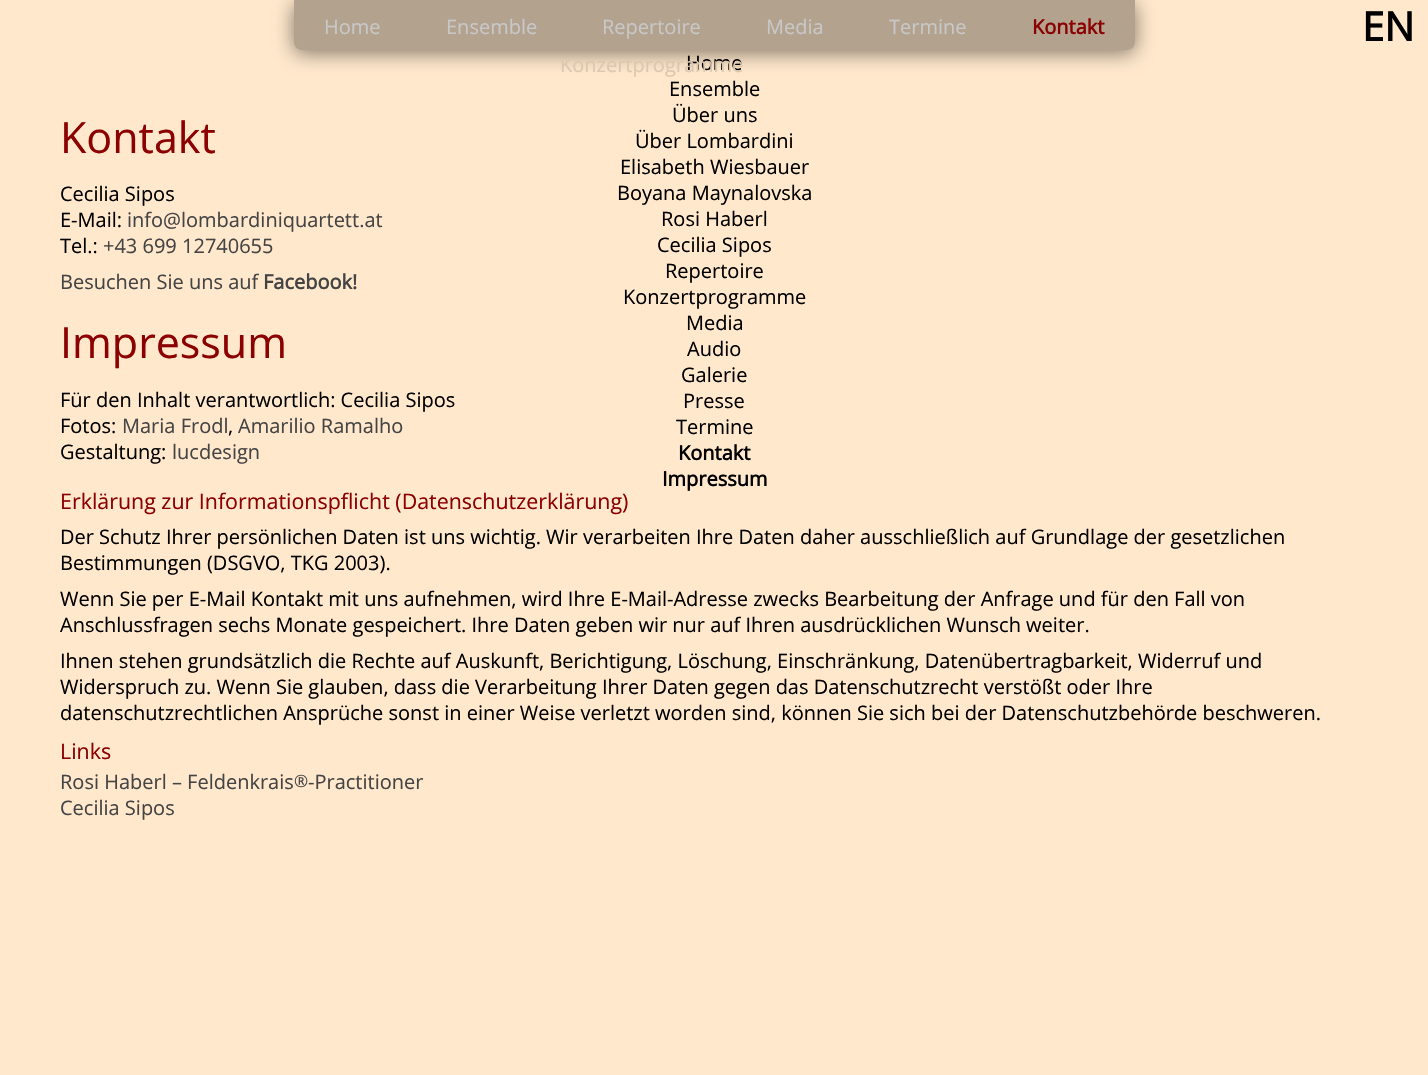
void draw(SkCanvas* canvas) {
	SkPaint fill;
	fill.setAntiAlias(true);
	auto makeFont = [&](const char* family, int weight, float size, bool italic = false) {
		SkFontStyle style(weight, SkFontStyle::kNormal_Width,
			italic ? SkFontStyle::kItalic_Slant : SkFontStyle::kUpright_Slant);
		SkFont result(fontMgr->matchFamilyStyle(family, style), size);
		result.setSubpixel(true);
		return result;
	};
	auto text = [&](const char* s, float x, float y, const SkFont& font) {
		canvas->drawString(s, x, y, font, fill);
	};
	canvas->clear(0xFFFFE8CC);
	canvas->save();
	canvas->clipPath(SkPathBuilder(SkPathFillType::kEvenOdd).moveTo(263, 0).lineTo(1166, 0).lineTo(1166, 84).lineTo(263, 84).close().moveTo(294, 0).lineTo(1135, 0).lineTo(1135, 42).cubicTo(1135, 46.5f, 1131.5f, 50, 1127, 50).lineTo(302, 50).cubicTo(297.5f, 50, 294, 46.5f, 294, 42).close().detach(), true);
	fill.setColor(0x80000000);
	fill.setMaskFilter(SkMaskFilter::MakeBlur(kNormal_SkBlurStyle, 10));
	canvas->drawRoundRect(SkRect::MakeLTRB(294, 3, 1135, 53), 8, 8, fill);
	fill.setMaskFilter(nullptr);
	canvas->restore();
	fill.setColor(0x4D000000);
	canvas->drawPath(SkPathBuilder().moveTo(294, 0).lineTo(1135, 0).lineTo(1135, 42).cubicTo(1135, 46.5f, 1131.5f, 50, 1127, 50).lineTo(302, 50).cubicTo(297.5f, 50, 294, 46.5f, 294, 42).close().detach(), fill);
	auto font1 = makeFont("Open Sans", 400, 20);
	fill.setColor(0xFFC8C8C8);
	text("Home", 324, 34, font1);
	text("Ensemble", 446, 34, font1);
	text("Repertoire", 602, 34, font1);
	text("Media", 766, 34, font1);
	text("Termine", 889, 34, font1);
	auto font2 = makeFont("Open Sans", 700, 20);
	fill.setColor(0xFF8B0000);
	text("Kontakt", 1032, 34, font2);
	auto font3 = makeFont("Open Sans", 700, 40);
	fill.setColor(0xFF000000);
	text("EN", 1362, 41, font3);
	text("Home", 686, 70, font1);
	fill.setColor(0xFFDBC8AF);
	text("Konzertprogramme", 560, 72, font1);
	fill.setColor(0xFF000000);
	text("Ensemble", 669, 96, font1);
	text("Über uns", 672, 122, font1);
	text("Über Lombardini", 635, 148, font1);
	text("Elisabeth Wiesbauer", 620, 174, font1);
	text("Boyana Maynalovska", 617, 200, font1);
	text("Rosi Haberl", 661, 226, font1);
	text("Cecilia Sipos", 657, 252, font1);
	text("Repertoire", 665, 278, font1);
	text("Konzertprogramme", 623, 304, font1);
	text("Media", 686, 330, font1);
	text("Audio", 687, 356, font1);
	text("Galerie", 681, 382, font1);
	text("Presse", 683, 408, font1);
	text("Termine", 676, 434, font1);
	text("Kontakt", 678, 460, font2);
	text("Impressum", 662, 486, font2);
	auto font4 = makeFont("Open Sans", 400, 43);
	fill.setColor(0xFF8B0000);
	text("Kontakt", 60, 153, font4);
	fill.setColor(0xFF000000);
	text("Cecilia Sipos", 60, 201, font1);
	text("E-Mail:", 60, 227, font1);
	fill.setColor(0xFF444444);
	text("info@lombardiniquartett.at", 127, 227, font1);
	fill.setColor(0xFF000000);
	text("Tel.:", 60, 253, font1);
	fill.setColor(0xFF444444);
	text("+43 699 12740655", 103, 253, font1);
	text("Besuchen Sie uns auf", 60, 289, font1);
	text("Facebook!", 263, 289, font2);
	fill.setColor(0xFF8B0000);
	text("Impressum", 60, 358, font4);
	fill.setColor(0xFF000000);
	text("Für den Inhalt verantwortlich: Cecilia Sipos", 60, 407, font1);
	text("Fotos:", 60, 433, font1);
	fill.setColor(0xFF444444);
	text("Maria Frodl", 122, 433, font1);
	fill.setColor(0xFF000000);
	text(",", 228, 433, font1);
	fill.setColor(0xFF444444);
	text("Amarilio Ramalho", 238, 433, font1);
	fill.setColor(0xFF000000);
	text("Gestaltung:", 60, 459, font1);
	fill.setColor(0xFF444444);
	text("lucdesign", 172, 459, font1);
	auto font5 = makeFont("Open Sans", 400, 21.4f);
	fill.setColor(0xFF8B0000);
	text("Erklärung zur Informationspflicht (Datenschutzerklärung)", 60, 509, font5);
	fill.setColor(0xFF000000);
	text("Der Schutz Ihrer persönlichen Daten ist uns wichtig. Wir verarbeiten Ihre Daten daher ausschließlich auf Grundlage der gesetzlichen", 60, 544, font1);
	text("Bestimmungen (DSGVO, TKG 2003).", 60, 570, font1);
	text("Wenn Sie per E-Mail Kontakt mit uns aufnehmen, wird Ihre E-Mail-Adresse zwecks Bearbeitung der Anfrage und für den Fall von", 60, 606, font1);
	text("Anschlussfragen sechs Monate gespeichert. Ihre Daten geben wir nur auf Ihren ausdrücklichen Wunsch weiter.", 60, 632, font1);
	text("Ihnen stehen grundsätzlich die Rechte auf Auskunft, Berichtigung, Löschung, Einschränkung, Datenübertragbarkeit, Widerruf und", 60, 668, font1);
	text("Widerspruch zu. Wenn Sie glauben, dass die Verarbeitung Ihrer Daten gegen das Datenschutzrecht verstößt oder Ihre", 60, 694, font1);
	text("datenschutzrechtlichen Ansprüche sonst in einer Weise verletzt worden sind, können Sie sich bei der Datenschutzbehörde beschweren.", 60, 720, font1);
	fill.setColor(0xFF8B0000);
	text("Links", 60, 759, font5);
	fill.setColor(0xFF444444);
	text("Rosi Haberl – Feldenkrais", 60, 789, font1);
	auto font6 = makeFont("Open Sans", 400, 17);
	text("®", 294, 787, font6);
	text("-Practitioner", 308, 789, font1);
	text("Cecilia Sipos", 60, 815, font1);
}
